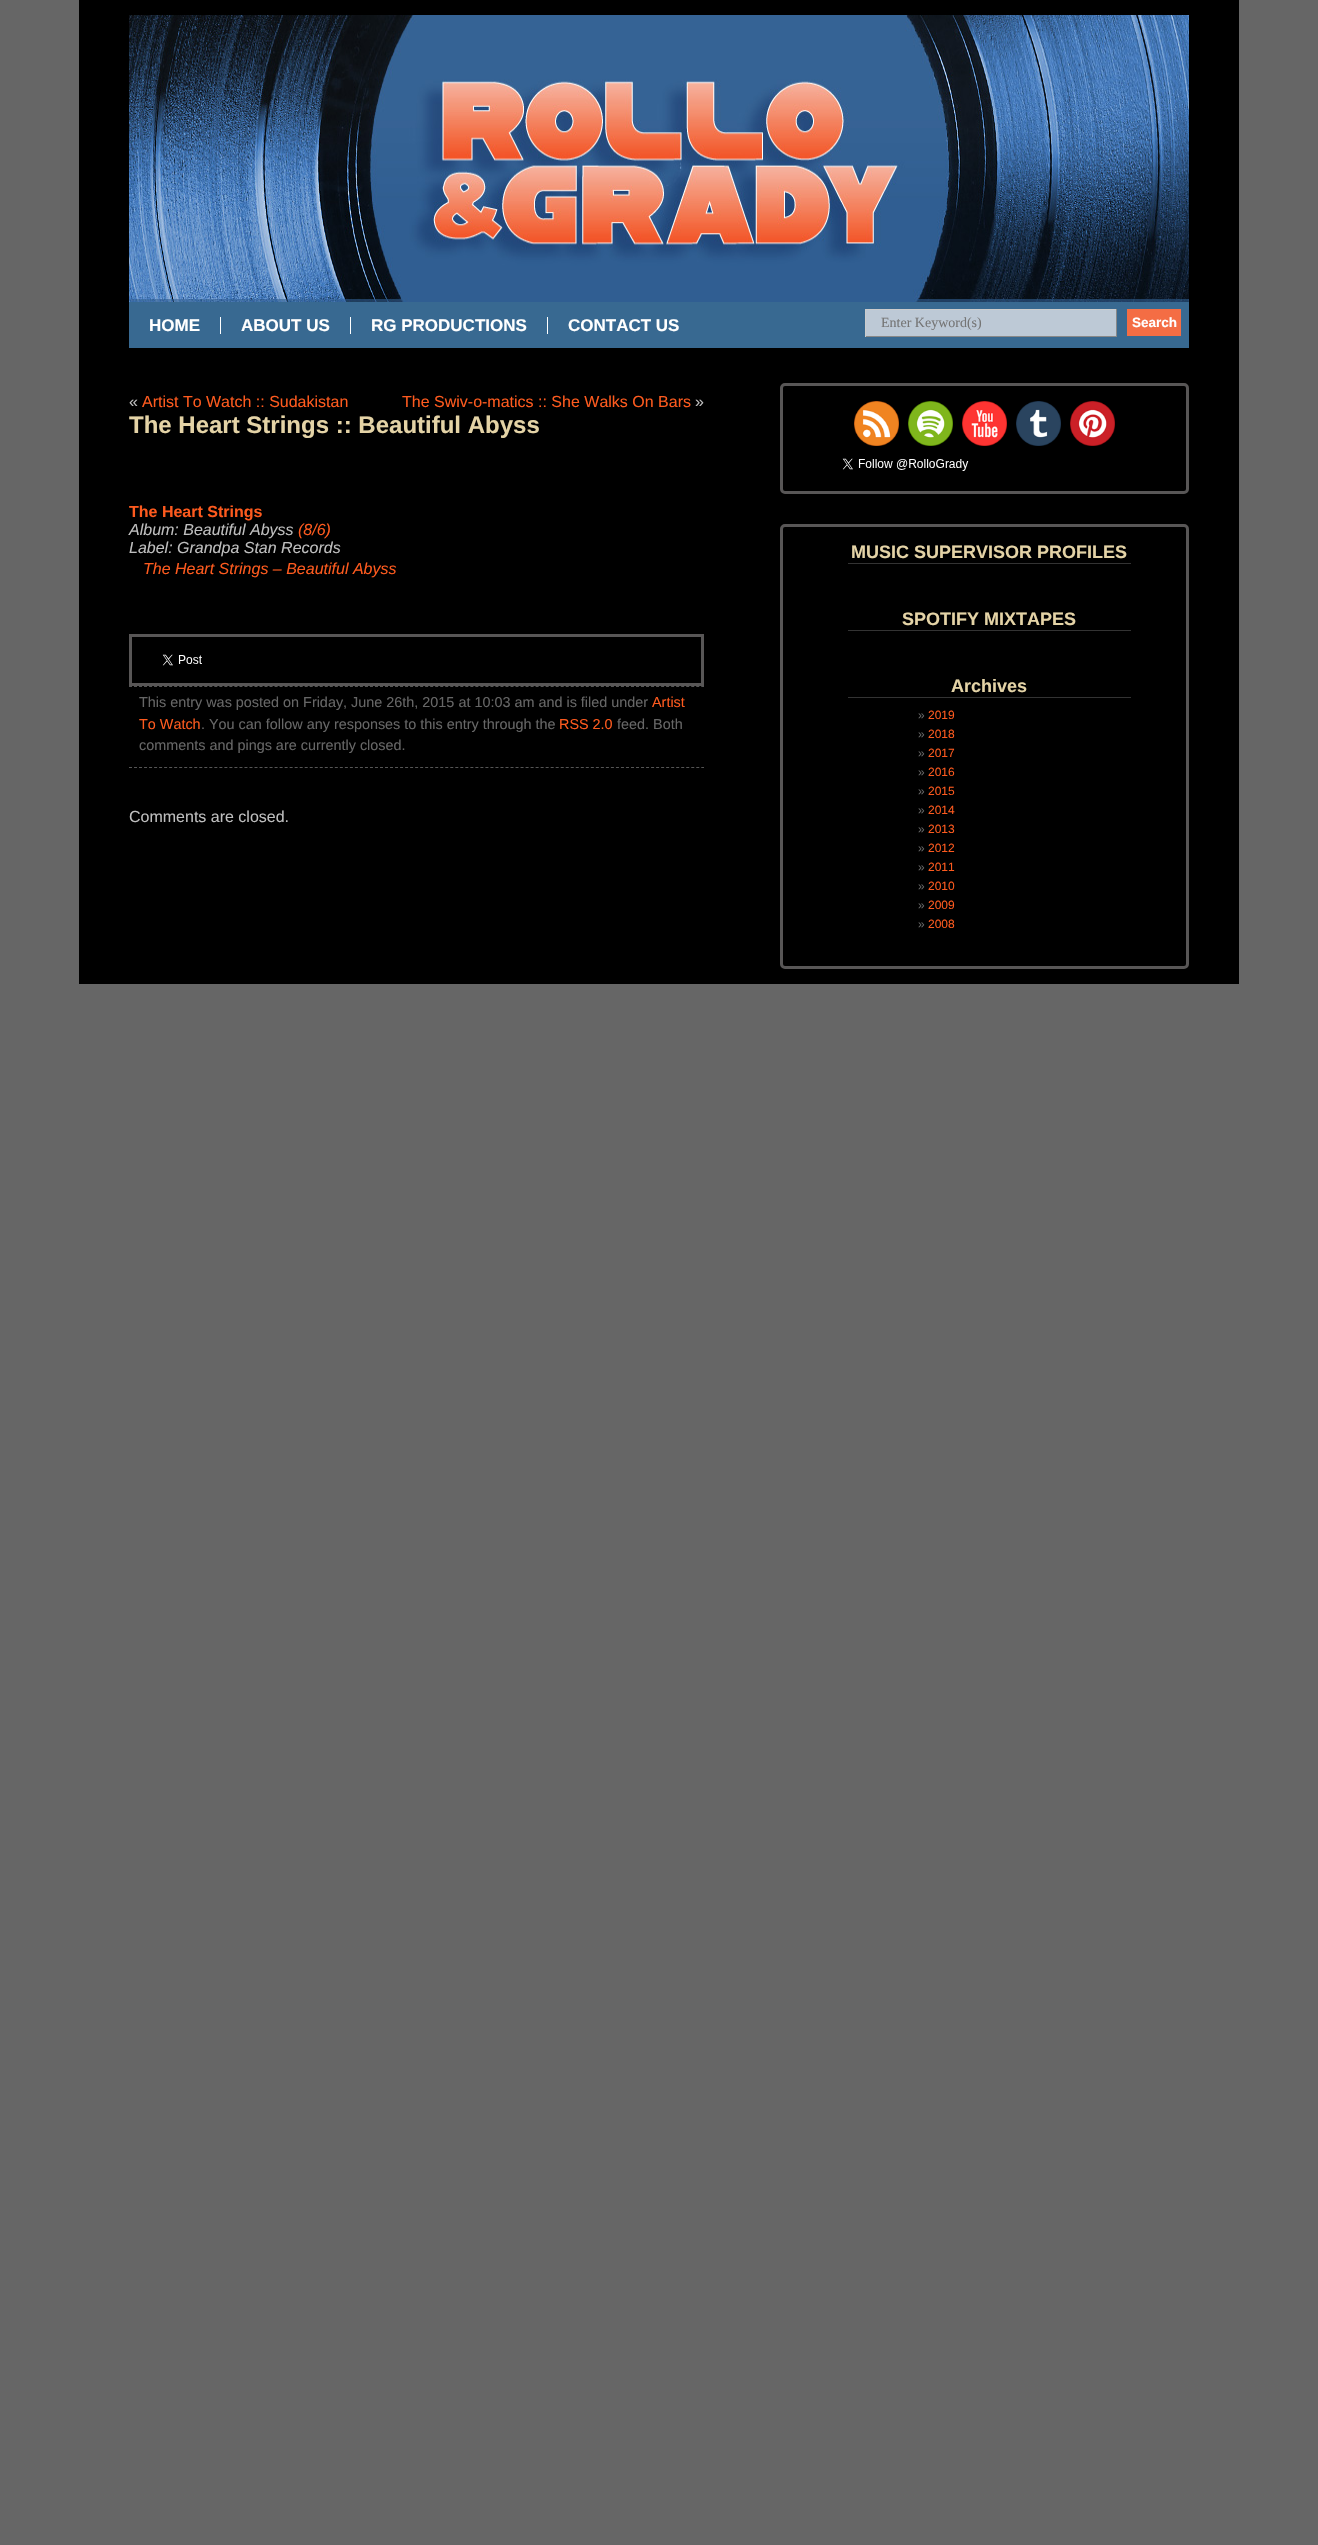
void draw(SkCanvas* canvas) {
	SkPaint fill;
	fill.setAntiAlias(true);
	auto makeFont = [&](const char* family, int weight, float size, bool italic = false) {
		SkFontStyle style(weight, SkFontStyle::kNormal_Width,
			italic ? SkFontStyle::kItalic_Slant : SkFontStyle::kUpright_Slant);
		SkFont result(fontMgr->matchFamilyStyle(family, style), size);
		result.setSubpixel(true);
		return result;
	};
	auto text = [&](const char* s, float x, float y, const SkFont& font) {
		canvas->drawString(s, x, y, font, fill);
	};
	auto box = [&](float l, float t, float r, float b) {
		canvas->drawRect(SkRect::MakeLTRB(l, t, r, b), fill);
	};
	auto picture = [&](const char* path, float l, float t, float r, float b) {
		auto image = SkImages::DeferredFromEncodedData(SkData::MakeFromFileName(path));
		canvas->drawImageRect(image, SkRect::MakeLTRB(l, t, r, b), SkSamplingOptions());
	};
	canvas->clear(0xFF666666);
	fill.setColor(0xFF000000);
	box(79, 0, 1239, 984);
	picture("image0.png", 129, 15, 1189, 302);
	fill.setColor(0xFF386991);
	box(129, 302, 1189, 348);
	fill.setColor(0xFFFFFFFF);
	box(220, 317, 221, 334);
	box(350, 317, 351, 334);
	box(547, 317, 548, 334);
	fill.setColor(0xFFBDC9D6);
	box(866, 310, 1116, 336);
	fill.setColor(0xFFCCCCCC);
	box(865, 309, 1117, 310);
	fill.setColor(0xFF888888);
	box(1116, 309, 1117, 337);
	box(865, 336, 1117, 337);
	fill.setColor(0xFFCCCCCC);
	box(865, 309, 866, 337);
	fill.setColor(0xFFF46D44);
	box(1127, 309, 1181, 336);
	fill.setStyle(SkPaint::kStroke_Style);
	fill.setStrokeWidth(3);
	fill.setColor(0xFF585656);
	canvas->drawRect(SkRect::MakeLTRB(130.5f, 635.5f, 702.5f, 684.5f), fill);
	picture("image1.png", 162, 654, 202, 666);
	fill.setStrokeWidth(1);
	fill.setColor(0xFF555555);
	fill.setPathEffect(SkDashPathEffect::Make({{3, 2.02f}}, 0));
	canvas->drawPath(SkPathBuilder().moveTo(129, 686.5f).lineTo(704, 686.5f).detach(), fill);
	fill.setPathEffect(nullptr);
	fill.setPathEffect(SkDashPathEffect::Make({{3, 2.02f}}, 0));
	canvas->drawPath(SkPathBuilder().moveTo(129, 767.5f).lineTo(704, 767.5f).detach(), fill);
	fill.setPathEffect(nullptr);
	fill.setStrokeWidth(3);
	fill.setColor(0xFF585656);
	canvas->drawRoundRect(SkRect::MakeLTRB(781.5f, 384.5f, 1187.5f, 492.5f), 3.5f, 3.5f, fill);
	picture("image2.png", 854, 401, 899, 446);
	picture("image3.png", 908, 401, 953, 446);
	picture("image4.png", 962, 401, 1007, 446);
	picture("image5.png", 1016, 401, 1061, 446);
	picture("image6.png", 1070, 401, 1115, 446);
	picture("image7.png", 842, 458, 969, 471);
	canvas->drawRoundRect(SkRect::MakeLTRB(781.5f, 525.5f, 1187.5f, 967.5f), 3.5f, 3.5f, fill);
	fill.setStyle(SkPaint::kFill_Style);
	fill.setColor(0xFF333333);
	box(848, 563, 1131, 564);
	box(848, 630, 1131, 631);
	box(848, 697, 1131, 698);
	auto font1 = makeFont("Liberation Sans", 700, 17);
	fill.setColor(0xFFFFFFFF);
	text("HOME", 149, 331, font1);
	text("ABOUT US", 241, 331, font1);
	text("RG PRODUCTIONS", 371, 331, font1);
	text("CONTACT US", 568, 331, font1);
	auto font2 = makeFont("Liberation Serif", 400, 14);
	fill.setColor(0xFF757575);
	text("Enter Keyword(s)", 881, 327, font2);
	auto font3 = makeFont("Liberation Sans", 700, 13.5f);
	fill.setColor(0xFFFFFFFF);
	text("Search", 1132, 327, font3);
	auto font4 = makeFont("Liberation Sans", 400, 16);
	fill.setColor(0xFFBEBEBE);
	text("«", 129, 407, font4);
	fill.setColor(0xFFFD5A1E);
	text("Artist To Watch :: Sudakistan", 142, 407, font4);
	text("The Swiv-o-matics :: She Walks On Bars", 402, 407, font4);
	fill.setColor(0xFFBEBEBE);
	text("»", 695, 407, font4);
	auto font5 = makeFont("Liberation Sans", 700, 24);
	fill.setColor(0xFFE4D3A6);
	text("The Heart Strings :: Beautiful Abyss", 129, 433, font5);
	auto font6 = makeFont("Liberation Sans", 700, 16);
	fill.setColor(0xFFFD5A1E);
	text("The Heart Strings", 129, 517, font6);
	auto font7 = makeFont("Liberation Sans", 400, 16, true);
	fill.setColor(0xFFBEBEBE);
	text("Album: Beautiful Abyss", 129, 535, font7);
	fill.setColor(0xFFFD5A1E);
	text("(8/6)", 298, 535, font7);
	fill.setColor(0xFFBEBEBE);
	text("Label: Grandpa Stan Records", 129, 553, font7);
	fill.setColor(0xFFFD5A1E);
	text("The Heart Strings – Beautiful Abyss", 143, 574, font7);
	auto font8 = makeFont("Liberation Sans", 400, 14.4f);
	fill.setColor(0xFF666666);
	text("This entry was posted on Friday, June 26th, 2015 at 10:03 am and is filed under", 139, 707, font8);
	fill.setColor(0xFFFD5A1E);
	text("Artist", 652, 707, font8);
	text("To Watch", 139, 729, font8);
	fill.setColor(0xFF666666);
	text(". You can follow any responses to this entry through the", 201, 729, font8);
	fill.setColor(0xFFFD5A1E);
	text("RSS 2.0", 559, 729, font8);
	fill.setColor(0xFF666666);
	text("feed. Both", 617, 729, font8);
	text("comments and pings are currently closed.", 139, 750, font8);
	fill.setColor(0xFFBEBEBE);
	text("Comments are closed.", 129, 822, font4);
	auto font9 = makeFont("Liberation Sans", 700, 18);
	fill.setColor(0xFFE4D3A6);
	text("MUSIC SUPERVISOR PROFILES", 851, 558, font9);
	text("SPOTIFY MIXTAPES", 902, 625, font9);
	text("Archives", 951, 692, font9);
	auto font10 = makeFont("Liberation Sans", 400, 12);
	fill.setColor(0xFF666666);
	text("»", 918, 719, font10);
	fill.setColor(0xFFFD5A1E);
	text("2019", 928, 719, font10);
	fill.setColor(0xFF666666);
	text("»", 918, 738, font10);
	fill.setColor(0xFFFD5A1E);
	text("2018", 928, 738, font10);
	fill.setColor(0xFF666666);
	text("»", 918, 757, font10);
	fill.setColor(0xFFFD5A1E);
	text("2017", 928, 757, font10);
	fill.setColor(0xFF666666);
	text("»", 918, 776, font10);
	fill.setColor(0xFFFD5A1E);
	text("2016", 928, 776, font10);
	fill.setColor(0xFF666666);
	text("»", 918, 795, font10);
	fill.setColor(0xFFFD5A1E);
	text("2015", 928, 795, font10);
	fill.setColor(0xFF666666);
	text("»", 918, 814, font10);
	fill.setColor(0xFFFD5A1E);
	text("2014", 928, 814, font10);
	fill.setColor(0xFF666666);
	text("»", 918, 833, font10);
	fill.setColor(0xFFFD5A1E);
	text("2013", 928, 833, font10);
	fill.setColor(0xFF666666);
	text("»", 918, 852, font10);
	fill.setColor(0xFFFD5A1E);
	text("2012", 928, 852, font10);
	fill.setColor(0xFF666666);
	text("»", 918, 871, font10);
	fill.setColor(0xFFFD5A1E);
	text("2011", 928, 871, font10);
	fill.setColor(0xFF666666);
	text("»", 918, 890, font10);
	fill.setColor(0xFFFD5A1E);
	text("2010", 928, 890, font10);
	fill.setColor(0xFF666666);
	text("»", 918, 909, font10);
	fill.setColor(0xFFFD5A1E);
	text("2009", 928, 909, font10);
	fill.setColor(0xFF666666);
	text("»", 918, 928, font10);
	fill.setColor(0xFFFD5A1E);
	text("2008", 928, 928, font10);
}
